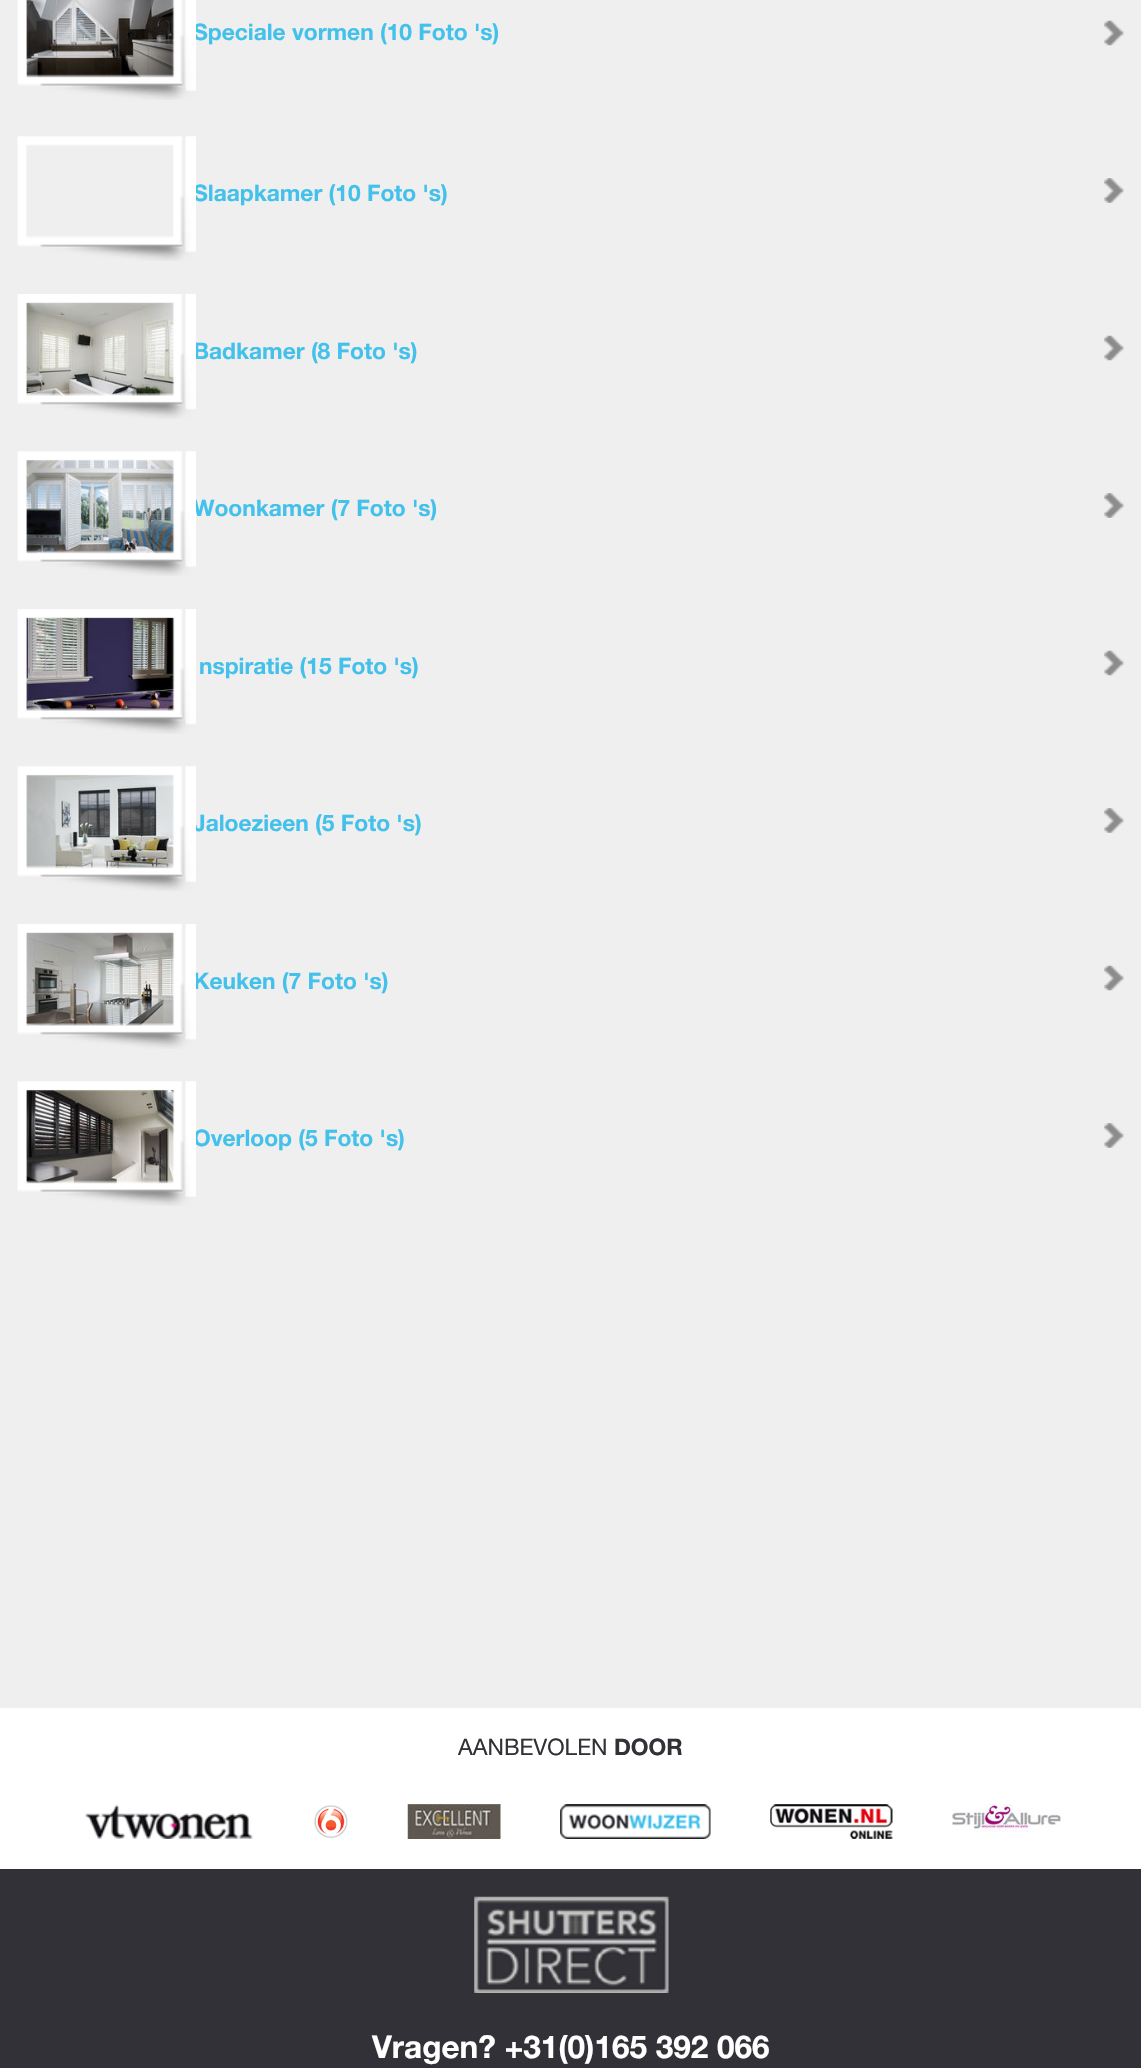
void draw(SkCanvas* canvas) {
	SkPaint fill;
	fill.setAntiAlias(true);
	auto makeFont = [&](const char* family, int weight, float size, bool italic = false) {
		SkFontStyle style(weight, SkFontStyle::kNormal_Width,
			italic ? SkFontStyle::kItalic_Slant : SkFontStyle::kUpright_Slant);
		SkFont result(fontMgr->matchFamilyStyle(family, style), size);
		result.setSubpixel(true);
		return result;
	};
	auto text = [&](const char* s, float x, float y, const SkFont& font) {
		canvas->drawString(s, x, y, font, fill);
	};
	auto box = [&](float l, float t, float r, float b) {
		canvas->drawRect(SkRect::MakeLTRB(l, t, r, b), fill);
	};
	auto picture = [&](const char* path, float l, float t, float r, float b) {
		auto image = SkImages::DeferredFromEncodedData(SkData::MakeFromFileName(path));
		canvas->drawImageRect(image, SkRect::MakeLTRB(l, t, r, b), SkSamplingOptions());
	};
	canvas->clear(0xFFFFFFFF);
	fill.setColor(0xFFEFEFF0);
	box(0, 0, 1141, 1708);
	picture("image1.png", 26, 0, 175, 78);
	picture("image2.png", 1104, 20, 1124, 46);
	picture("image4.png", 1104, 178, 1124, 203);
	picture("image6.png", 26, 302, 175, 396);
	picture("image2.png", 1104, 335, 1124, 361);
	picture("image8.png", 26, 460, 175, 554);
	picture("image4.png", 1104, 493, 1124, 518);
	picture("image10.png", 26, 617, 175, 711);
	picture("image9.png", 17, 609, 196, 734);
	picture("image2.png", 1104, 650, 1124, 676);
	picture("image12.png", 26, 775, 175, 869);
	picture("image4.png", 1104, 808, 1124, 833);
	picture("image14.png", 26, 932, 175, 1026);
	picture("image2.png", 1104, 965, 1124, 991);
	picture("image16.png", 26, 1090, 175, 1184);
	picture("image4.png", 1104, 1123, 1124, 1148);
	picture("image17.png", 84, 1804, 253, 1839);
	picture("image18.png", 314, 1805, 348, 1839);
	picture("image19.png", 407, 1804, 501, 1839);
	picture("image20.png", 560, 1804, 711, 1839);
	picture("image21.png", 770, 1804, 893, 1839);
	picture("image22.png", 952, 1804, 1061, 1832);
	fill.setColor(0xFF323137);
	box(0, 1869, 1141, 2068);
	picture("image23.png", 474, 1896, 669, 1993);
	auto font1 = makeFont("Helvetica Neue", 700, 22.75f);
	fill.setColor(0xFF44C1EB);
	text("Speciale vormen (10 Foto 's)", 193, 40, font1);
	picture("image0.png", 17, 0, 196, 100);
	text("Slaapkamer (10 Foto 's)", 193, 201, font1);
	picture("image3.png", 17, 136, 196, 261);
	text("Badkamer (8 Foto 's)", 193, 359, font1);
	picture("image5.png", 17, 294, 196, 419);
	text("Woonkamer (7 Foto 's)", 193, 516, font1);
	picture("image7.png", 17, 451, 196, 576);
	text("nspiratie (15 Foto 's)", 199, 674, font1);
	text("Jaloezieen (5 Foto 's)", 193, 831, font1);
	picture("image11.png", 17, 766, 196, 891);
	text("Keuken (7 Foto 's)", 193, 989, font1);
	picture("image13.png", 17, 924, 196, 1049);
	text("Overloop (5 Foto 's)", 193, 1146, font1);
	picture("image15.png", 17, 1081, 196, 1206);
	auto font2 = makeFont("Helvetica Neue", 400, 22.75f);
	fill.setColor(0xFF323137);
	text("AANBEVOLEN", 458, 1755, font2);
	text("DOOR", 614, 1755, font1);
	auto font3 = makeFont("Helvetica Neue", 700, 31.5f);
	fill.setColor(0xFFFFFFFF);
	text("Vragen? +31(0)165 392 066", 372, 2058, font3);
}
